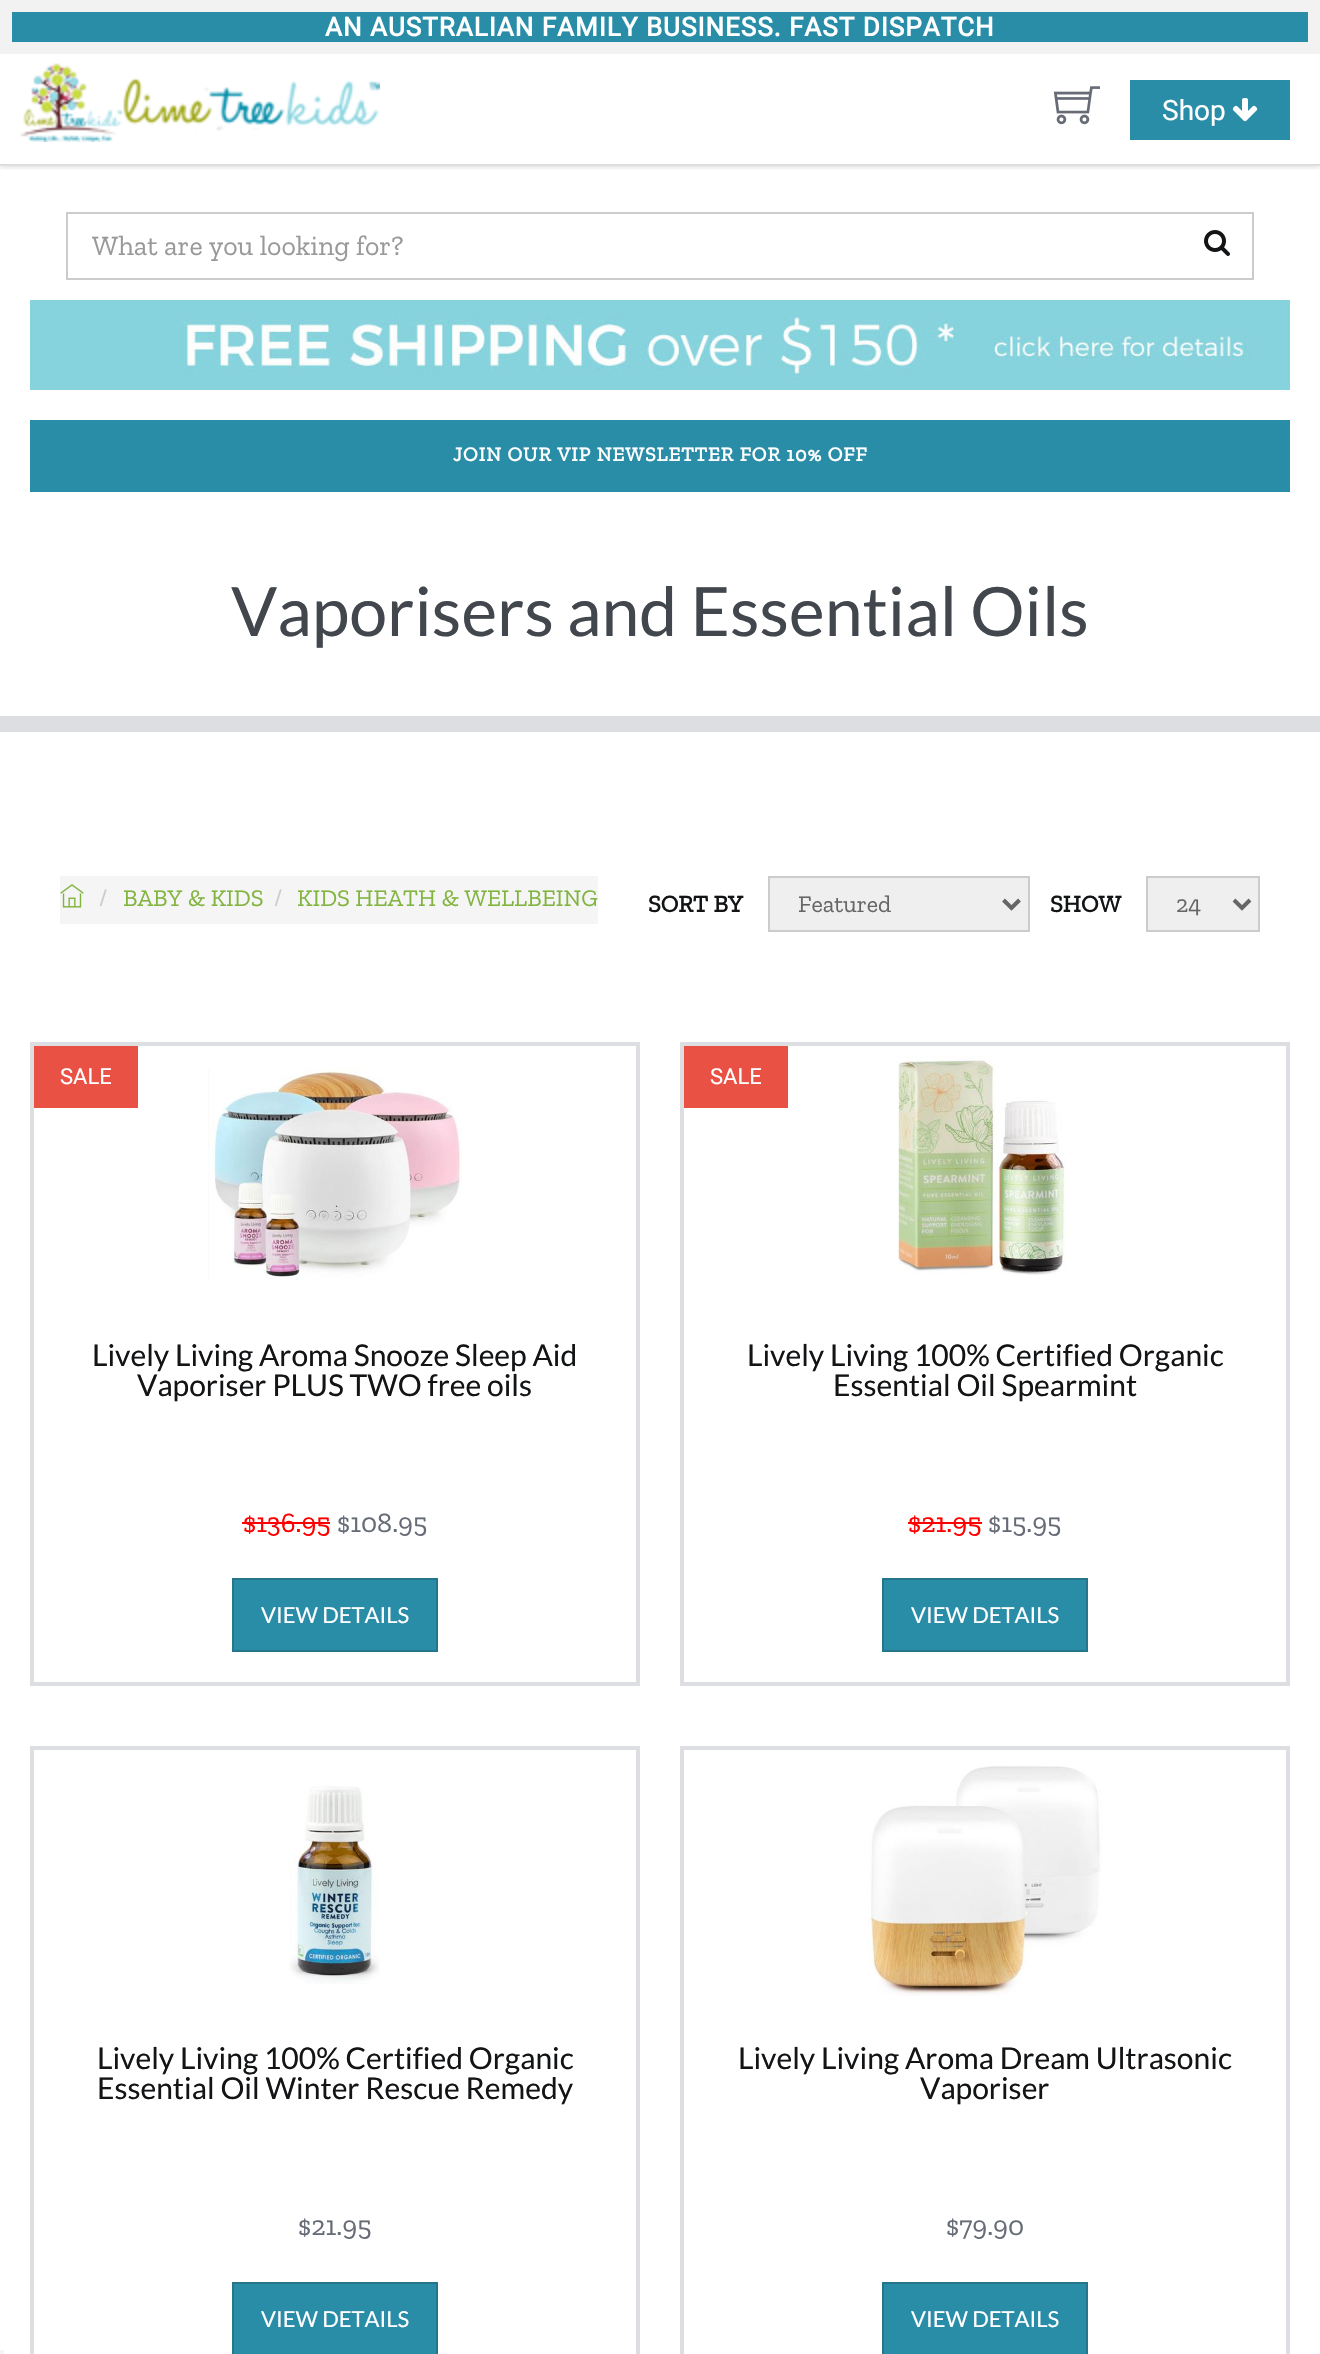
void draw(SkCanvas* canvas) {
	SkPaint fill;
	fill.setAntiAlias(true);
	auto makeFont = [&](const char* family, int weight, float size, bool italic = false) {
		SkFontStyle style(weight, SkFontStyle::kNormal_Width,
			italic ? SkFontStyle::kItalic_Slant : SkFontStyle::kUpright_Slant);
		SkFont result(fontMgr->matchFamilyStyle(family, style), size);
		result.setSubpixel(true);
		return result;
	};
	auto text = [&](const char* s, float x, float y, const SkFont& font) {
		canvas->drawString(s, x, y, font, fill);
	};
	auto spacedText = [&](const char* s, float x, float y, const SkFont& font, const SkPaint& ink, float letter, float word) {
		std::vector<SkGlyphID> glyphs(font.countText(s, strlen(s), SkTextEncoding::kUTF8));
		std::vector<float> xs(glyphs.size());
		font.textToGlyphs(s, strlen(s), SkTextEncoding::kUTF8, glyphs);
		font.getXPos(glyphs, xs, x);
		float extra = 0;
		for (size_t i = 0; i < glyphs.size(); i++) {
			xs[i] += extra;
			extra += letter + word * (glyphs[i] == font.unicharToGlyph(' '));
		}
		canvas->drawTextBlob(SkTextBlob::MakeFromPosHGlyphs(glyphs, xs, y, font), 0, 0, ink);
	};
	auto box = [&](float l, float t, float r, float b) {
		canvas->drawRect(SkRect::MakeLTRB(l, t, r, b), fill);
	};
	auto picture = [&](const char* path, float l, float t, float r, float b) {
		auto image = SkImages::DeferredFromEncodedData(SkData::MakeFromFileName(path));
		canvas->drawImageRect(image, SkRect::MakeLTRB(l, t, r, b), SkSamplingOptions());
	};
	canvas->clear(0xFFFFFFFF);
	canvas->save();
	canvas->clipRect(SkRect::MakeLTRB(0, 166, 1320, 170));
	fill.setColor(0x1A000000);
	fill.setMaskFilter(SkMaskFilter::MakeBlur(kNormal_SkBlurStyle, 2));
	canvas->drawRect(SkRect::MakeLTRB(0, 2, 1320, 168), fill);
	fill.setMaskFilter(nullptr);
	canvas->restore();
	fill.setColor(0xFFF2F2F2);
	box(0, 0, 1320, 54);
	fill.setColor(0xFF2A8DA8);
	box(12, 12, 1308, 42);
	fill.setColor(0xFFDDDDDD);
	box(0, 164, 1320, 166);
	picture("image0.png", 20, 63, 380, 142);
	picture("image1.png", 1053, 86, 1100, 125);
	fill.setColor(0xFF2A8DA8);
	box(1130, 80, 1290, 140);
	picture("image2.png", 1232, 98, 1258, 122);
	fill.setStyle(SkPaint::kStroke_Style);
	fill.setStrokeWidth(2);
	fill.setColor(0xFFCCCCCC);
	canvas->drawRect(SkRect::MakeLTRB(67, 213, 1253, 279), fill);
	picture("image3.png", 1204, 230, 1230, 256);
	picture("image4.png", 30, 300, 1290, 390);
	fill.setStyle(SkPaint::kFill_Style);
	fill.setColor(0xFF2A8DA8);
	box(30, 420, 1290, 492);
	fill.setColor(0xFFDCDEE1);
	box(0, 716, 1320, 732);
	fill.setColor(0xFFF5F5F5);
	box(60, 876, 598, 924);
	picture("image5.png", 60, 884, 84, 908);
	fill.setColor(0xFFEFEFEF);
	canvas->drawRect(SkRect::MakeLTRB(769, 877, 1029, 931), fill);
	fill.setStyle(SkPaint::kStroke_Style);
	fill.setColor(0xFFCCCCCC);
	canvas->drawRect(SkRect::MakeLTRB(769, 877, 1029, 931), fill);
	fill.setStrokeWidth(4);
	fill.setColor(0xFF666666);
	canvas->drawPath(SkPathBuilder().moveTo(1003.5f, 900).lineTo(1011.5f, 908).lineTo(1019.5f, 900).detach(), fill);
	fill.setStyle(SkPaint::kFill_Style);
	fill.setColor(0xFFEFEFEF);
	canvas->drawRect(SkRect::MakeLTRB(1147, 877, 1259, 931), fill);
	fill.setStyle(SkPaint::kStroke_Style);
	fill.setStrokeWidth(2);
	fill.setColor(0xFFCCCCCC);
	canvas->drawRect(SkRect::MakeLTRB(1147, 877, 1259, 931), fill);
	fill.setStrokeWidth(4);
	fill.setColor(0xFF666666);
	canvas->drawPath(SkPathBuilder().moveTo(1234, 900).lineTo(1242, 908).lineTo(1250, 900).detach(), fill);
	fill.setColor(0xFFDCDEE1);
	canvas->drawRect(SkRect::MakeLTRB(32, 1044, 638, 1684), fill);
	fill.setStyle(SkPaint::kFill_Style);
	fill.setColor(0xFFE95144);
	box(34, 1046, 138, 1108);
	picture("image6.png", 208, 1067, 462, 1280);
	fill.setColor(0xFFFF0000);
	box(242, 1522, 330, 1524);
	fill.setColor(0xFF2A8DA8);
	canvas->drawRect(SkRect::MakeLTRB(233, 1579, 437, 1651), fill);
	fill.setStyle(SkPaint::kStroke_Style);
	fill.setStrokeWidth(2);
	fill.setColor(0xFF25758B);
	canvas->drawRect(SkRect::MakeLTRB(233, 1579, 437, 1651), fill);
	fill.setStrokeWidth(4);
	fill.setColor(0xFFDCDEE1);
	canvas->drawRect(SkRect::MakeLTRB(682, 1044, 1288, 1684), fill);
	fill.setStyle(SkPaint::kFill_Style);
	fill.setColor(0xFFE95144);
	box(684, 1046, 788, 1108);
	picture("image7.png", 898, 1056, 1069, 1275);
	fill.setColor(0xFFFF0000);
	box(908, 1522, 982, 1524);
	fill.setColor(0xFF2A8DA8);
	canvas->drawRect(SkRect::MakeLTRB(883, 1579, 1087, 1651), fill);
	fill.setStyle(SkPaint::kStroke_Style);
	fill.setStrokeWidth(2);
	fill.setColor(0xFF25758B);
	canvas->drawRect(SkRect::MakeLTRB(883, 1579, 1087, 1651), fill);
	fill.setStrokeWidth(4);
	fill.setColor(0xFFDCDEE1);
	canvas->drawRect(SkRect::MakeLTRB(32, 1748, 638, 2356), fill);
	picture("image8.png", 289, 1786, 380, 1984);
	fill.setStyle(SkPaint::kFill_Style);
	fill.setColor(0xFF2A8DA8);
	canvas->drawRect(SkRect::MakeLTRB(233, 2283, 437, 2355), fill);
	fill.setStyle(SkPaint::kStroke_Style);
	fill.setStrokeWidth(2);
	fill.setColor(0xFF25758B);
	canvas->drawRect(SkRect::MakeLTRB(233, 2283, 437, 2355), fill);
	fill.setStrokeWidth(4);
	fill.setColor(0xFFDCDEE1);
	canvas->drawRect(SkRect::MakeLTRB(682, 1748, 1288, 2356), fill);
	picture("image9.png", 868, 1766, 1102, 1996);
	fill.setStyle(SkPaint::kFill_Style);
	fill.setColor(0xFF2A8DA8);
	canvas->drawRect(SkRect::MakeLTRB(883, 2283, 1087, 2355), fill);
	fill.setStyle(SkPaint::kStroke_Style);
	fill.setStrokeWidth(2);
	fill.setColor(0xFF25758B);
	canvas->drawRect(SkRect::MakeLTRB(883, 2283, 1087, 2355), fill);
	fill.setStyle(SkPaint::kFill_Style);
	fill.setColor(0xFFF5F5F5);
	box(0, 2350, 4, 2354);
	auto font1 = makeFont("Roboto", 700, 26);
	fill.setColor(0xFFFFFFFF);
	spacedText("AN AUSTRALIAN FAMILY BUSINESS. FAST DISPATCH", 325, 36, font1, fill, 1, 0);
	auto font2 = makeFont("Roboto", 400, 28);
	text("Shop", 1162, 120, font2);
	auto font3 = makeFont("Zilla Slab", 400, 28);
	fill.setColor(0xFF999999);
	text("What are you looking for?", 92, 255, font3);
	auto font4 = makeFont("Zilla Slab", 700, 20);
	fill.setColor(0xFFFFFFFF);
	spacedText("JOIN OUR VIP NEWSLETTER FOR 10% OFF", 453, 461, font4, fill, 1, 0);
	auto font5 = makeFont("Lato", 400, 68);
	fill.setColor(0xFF42464D);
	text("Vaporisers and Essential Oils", 231, 636, font5);
	auto font6 = makeFont("Zilla Slab", 400, 24);
	fill.setColor(0xFFCCCCCC);
	text("/", 99, 906, font6);
	fill.setColor(0xFF82B440);
	text("BABY & KIDS", 123, 906, font6);
	fill.setColor(0xFFCCCCCC);
	text("/", 274, 906, font6);
	fill.setColor(0xFF82B440);
	text("KIDS HEATH & WELLBEING", 297, 906, font6);
	auto font7 = makeFont("Zilla Slab", 700, 24);
	fill.setColor(0xFF131416);
	text("SORT BY", 648, 912, font7);
	fill.setColor(0xFF666666);
	text("Featured", 798, 912, font6);
	fill.setColor(0xFF131416);
	text("SHOW", 1050, 912, font7);
	fill.setColor(0xFF666666);
	text("24", 1176, 912, font6);
	auto font8 = makeFont("Roboto", 400, 22);
	fill.setColor(0xFFFFFFFF);
	text("SALE", 60, 1084, font8);
	auto font9 = makeFont("Lato", 400, 30);
	fill.setColor(0xFF131416);
	text("Lively Living Aroma Snooze Sleep Aid", 92, 1366, font9);
	text("Vaporiser PLUS TWO free oils", 137, 1396, font9);
	fill.setColor(0xFFFF0000);
	text("$136.95", 243, 1532, font3);
	fill.setColor(0xFF666B76);
	text("$108.95", 337, 1532, font3);
	auto font10 = makeFont("Lato", 400, 22);
	fill.setColor(0xFFFFFFFF);
	text("VIEW DETAILS", 261, 1623, font10);
	text("SALE", 710, 1084, font8);
	fill.setColor(0xFF131416);
	text("Lively Living 100% Certified Organic", 747, 1366, font9);
	text("Essential Oil Spearmint", 833, 1396, font9);
	fill.setColor(0xFFFF0000);
	text("$21.95", 908, 1532, font3);
	fill.setColor(0xFF666B76);
	text("$15.95", 988, 1532, font3);
	fill.setColor(0xFFFFFFFF);
	text("VIEW DETAILS", 911, 1623, font10);
	fill.setColor(0xFF131416);
	text("Lively Living 100% Certified Organic", 97, 2069, font9);
	text("Essential Oil Winter Rescue Remedy", 97, 2099, font9);
	fill.setColor(0xFF666B76);
	text("$21.95", 298, 2235, font3);
	fill.setColor(0xFFFFFFFF);
	text("VIEW DETAILS", 261, 2327, font10);
	fill.setColor(0xFF131416);
	text("Lively Living Aroma Dream Ultrasonic", 738, 2069, font9);
	text("Vaporiser", 920, 2099, font9);
	fill.setColor(0xFF666B76);
	text("$79.90", 946, 2235, font3);
	fill.setColor(0xFFFFFFFF);
	text("VIEW DETAILS", 911, 2327, font10);
}
